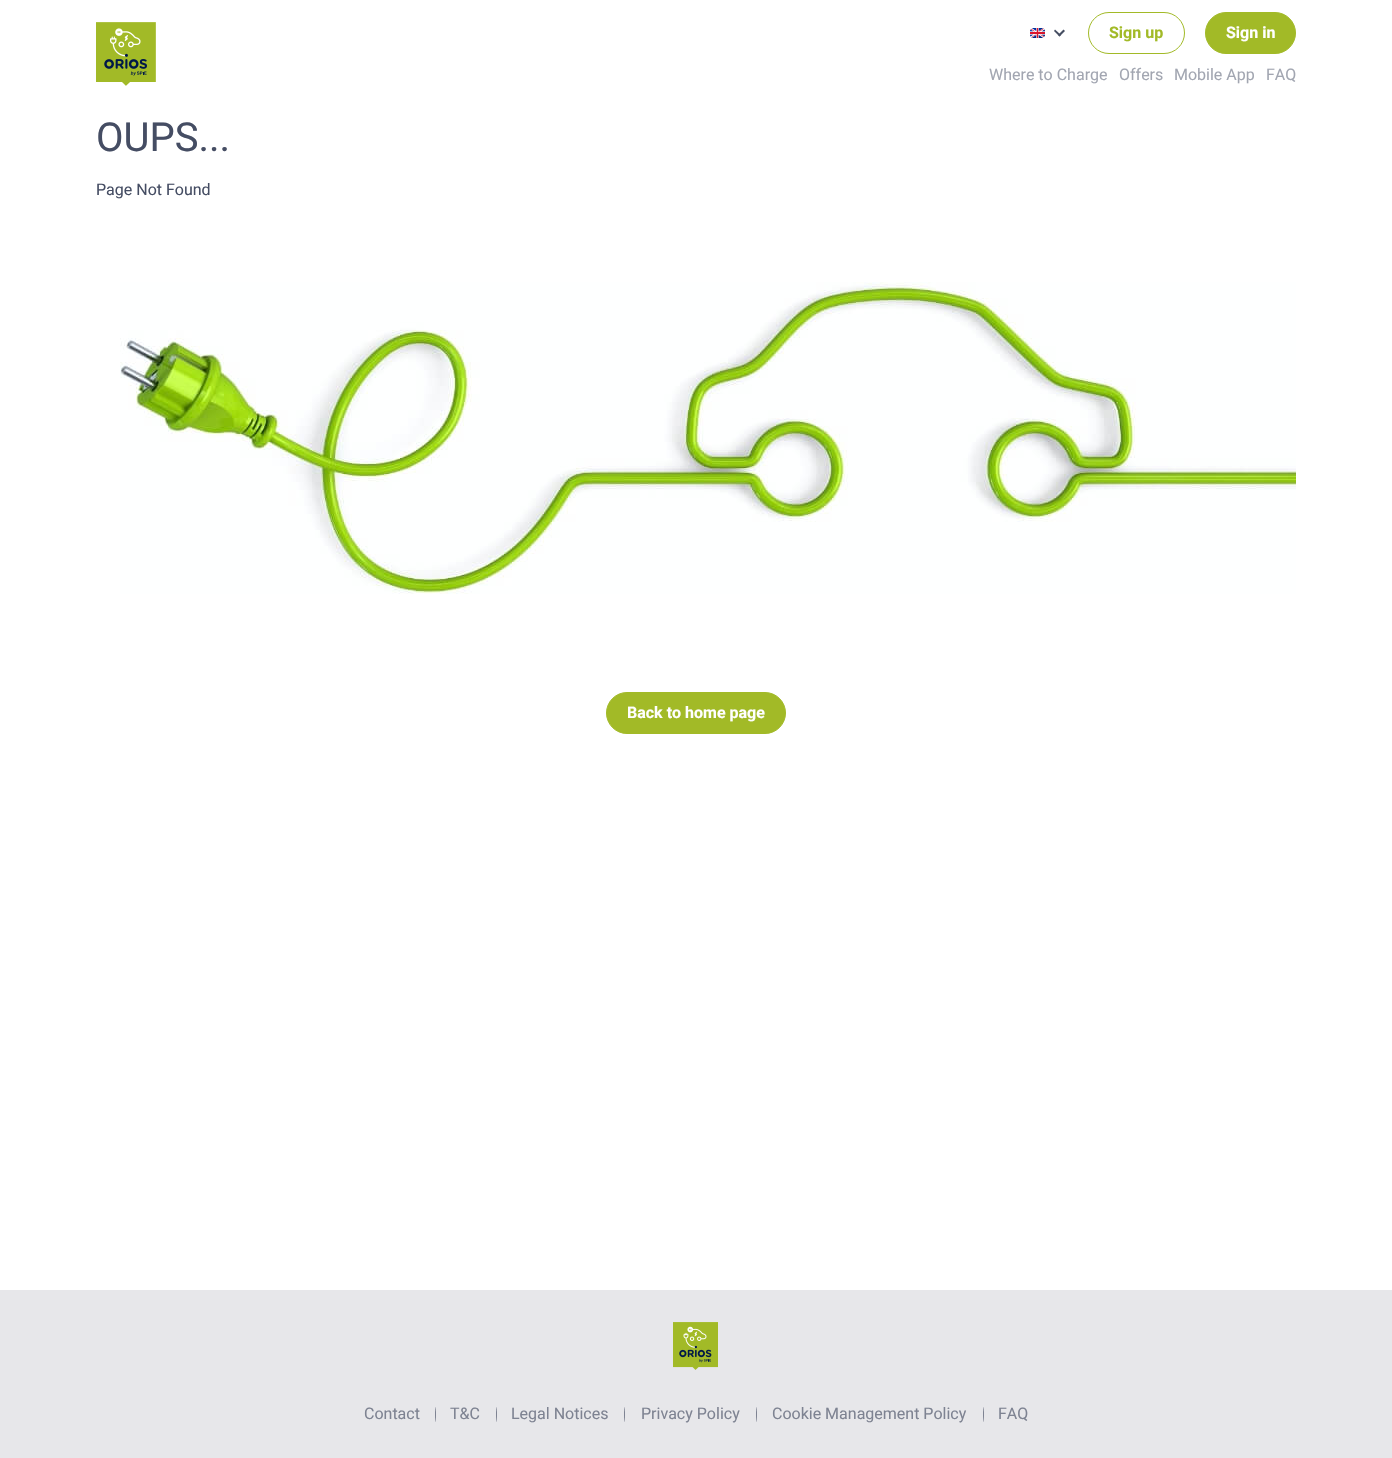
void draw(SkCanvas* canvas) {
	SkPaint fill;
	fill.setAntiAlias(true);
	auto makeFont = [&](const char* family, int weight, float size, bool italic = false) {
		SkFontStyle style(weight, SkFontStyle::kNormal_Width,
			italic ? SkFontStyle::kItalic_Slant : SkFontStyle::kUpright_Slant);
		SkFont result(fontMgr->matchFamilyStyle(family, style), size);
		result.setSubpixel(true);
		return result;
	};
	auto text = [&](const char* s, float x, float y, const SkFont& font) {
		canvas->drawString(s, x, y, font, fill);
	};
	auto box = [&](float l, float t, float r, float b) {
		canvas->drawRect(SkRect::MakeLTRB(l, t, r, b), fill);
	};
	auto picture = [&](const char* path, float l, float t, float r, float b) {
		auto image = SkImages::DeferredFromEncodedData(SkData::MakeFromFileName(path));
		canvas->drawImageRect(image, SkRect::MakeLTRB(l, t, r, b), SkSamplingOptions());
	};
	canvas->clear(0xFFFFFFFF);
	picture("image0.png", 96, 22, 156, 86);
	picture("image1.png", 1030, 28, 1045, 38);
	fill.setColor(0xFF454E62);
	canvas->drawPath(SkPathBuilder().moveTo(1063.5f, 29.5f).lineTo(1065, 31).lineTo(1059.5f, 36.5f).lineTo(1058, 35).close().detach(), fill);
	canvas->drawPath(SkPathBuilder().moveTo(1055, 29.5f).lineTo(1061, 35).lineTo(1059.5f, 36.5f).lineTo(1054, 31).close().detach(), fill);
	fill.setStyle(SkPaint::kStroke_Style);
	fill.setStrokeWidth(1);
	fill.setColor(0xFFA2BA27);
	canvas->drawRoundRect(SkRect::MakeLTRB(1088.5f, 12.5f, 1184.5f, 53.5f), 20.5f, 20.5f, fill);
	fill.setStyle(SkPaint::kFill_Style);
	canvas->drawRoundRect(SkRect::MakeLTRB(1205.5f, 12.5f, 1295.5f, 53.5f), 20.5f, 20.5f, fill);
	fill.setStyle(SkPaint::kStroke_Style);
	canvas->drawRoundRect(SkRect::MakeLTRB(1205.5f, 12.5f, 1295.5f, 53.5f), 20.5f, 20.5f, fill);
	picture("image2.png", 120, 282, 1296, 594);
	fill.setStyle(SkPaint::kFill_Style);
	canvas->drawRoundRect(SkRect::MakeLTRB(606.5f, 692.5f, 785.5f, 733.5f), 20.5f, 20.5f, fill);
	fill.setStyle(SkPaint::kStroke_Style);
	canvas->drawRoundRect(SkRect::MakeLTRB(606.5f, 692.5f, 785.5f, 733.5f), 20.5f, 20.5f, fill);
	fill.setStyle(SkPaint::kFill_Style);
	fill.setColor(0xFFE7E7EA);
	box(0, 1290, 1392, 1458);
	picture("image3.png", 673, 1322, 718, 1370);
	fill.setColor(0xFF7E8392);
	canvas->drawOval(SkRect::MakeLTRB(435, 1407, 436, 1422), fill);
	canvas->drawOval(SkRect::MakeLTRB(496, 1407, 497, 1422), fill);
	canvas->drawOval(SkRect::MakeLTRB(624, 1407, 625, 1422), fill);
	canvas->drawOval(SkRect::MakeLTRB(756, 1407, 757, 1422), fill);
	canvas->drawOval(SkRect::MakeLTRB(983, 1407, 984, 1422), fill);
	auto font1 = makeFont("Roboto", 700, 16);
	fill.setColor(0xFFA2BA27);
	text("Sign up", 1109, 38, font1);
	fill.setColor(0xFFFFFFFF);
	text("Sign in", 1226, 38, font1);
	auto font2 = makeFont("Roboto", 400, 16);
	fill.setColor(0xFFA2A6B1);
	text("Where to Charge", 989, 80, font2);
	text("Offers", 1119, 80, font2);
	text("Mobile App", 1174, 80, font2);
	text("FAQ", 1266, 80, font2);
	auto font3 = makeFont("Roboto", 400, 40);
	fill.setColor(0xFF454D63);
	text("OUPS...", 96, 151, font3);
	text("Page Not Found", 96, 195, font2);
	fill.setColor(0xFFFFFFFF);
	text("Back to home page", 627, 718, font1);
	fill.setColor(0xFF7E8392);
	text("Contact", 364, 1419, font2);
	text("T&C", 450, 1419, font2);
	text("Legal Notices", 511, 1419, font2);
	text("Privacy Policy", 641, 1419, font2);
	text("Cookie Management Policy", 772, 1419, font2);
	text("FAQ", 998, 1419, font2);
}
